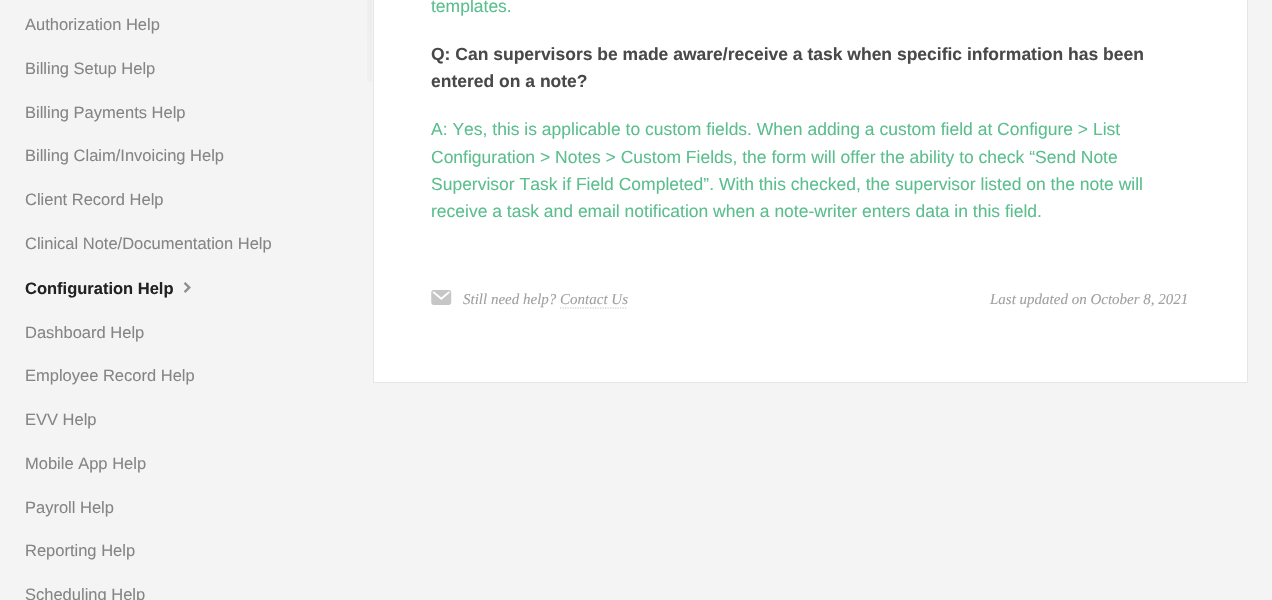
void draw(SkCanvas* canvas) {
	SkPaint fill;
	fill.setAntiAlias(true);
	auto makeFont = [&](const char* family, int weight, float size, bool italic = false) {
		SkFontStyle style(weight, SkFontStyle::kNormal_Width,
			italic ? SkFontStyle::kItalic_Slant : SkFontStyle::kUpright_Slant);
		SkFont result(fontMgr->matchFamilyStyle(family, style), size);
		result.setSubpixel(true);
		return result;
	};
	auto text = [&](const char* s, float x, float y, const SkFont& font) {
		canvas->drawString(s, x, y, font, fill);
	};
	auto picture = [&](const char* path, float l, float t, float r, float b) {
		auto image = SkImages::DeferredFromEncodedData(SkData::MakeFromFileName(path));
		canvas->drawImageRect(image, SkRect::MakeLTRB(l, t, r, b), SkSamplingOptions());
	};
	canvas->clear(0xFFF4F4F4);
	picture("image0.png", 183, 282, 191, 293);
	picture("image1.png", 367, 0, 372, 82);
	fill.setColor(0xFFFFFFFF);
	canvas->drawRect(SkRect::MakeLTRB(373.5f, -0.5f, 1247.5f, 382.5f), fill);
	fill.setStyle(SkPaint::kStroke_Style);
	fill.setStrokeWidth(1);
	fill.setColor(0xFFE9E5E5);
	canvas->drawRect(SkRect::MakeLTRB(373.5f, -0.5f, 1247.5f, 382.5f), fill);
	picture("image2.png", 431, 290, 452, 305);
	auto font1 = makeFont("Liberation Sans", 400, 16.5f);
	fill.setStyle(SkPaint::kFill_Style);
	fill.setColor(0xFF858585);
	text("Authorization Help", 25, 30, font1);
	text("Billing Setup Help", 25, 74, font1);
	text("Billing Payments Help", 25, 118, font1);
	text("Billing Claim/Invoicing Help", 25, 161, font1);
	text("Client Record Help", 25, 205, font1);
	text("Clinical Note/Documentation Help", 25, 249, font1);
	auto font2 = makeFont("Liberation Sans", 700, 16.5f);
	fill.setColor(0xFF222222);
	text("Configuration Help", 25, 294, font2);
	fill.setColor(0xFF858585);
	text("Dashboard Help", 25, 338, font1);
	text("Employee Record Help", 25, 381, font1);
	text("EVV Help", 25, 425, font1);
	text("Mobile App Help", 25, 469, font1);
	text("Payroll Help", 25, 513, font1);
	text("Reporting Help", 25, 556, font1);
	text("Scheduling Help", 25, 600, font1);
	auto font3 = makeFont("Liberation Sans", 400, 17.5f);
	fill.setColor(0xFF5ABE8D);
	text("templates.", 431, 12, font3);
	auto font4 = makeFont("Liberation Sans", 700, 17.5f);
	fill.setColor(0xFF494949);
	text("Q: Can supervisors be made aware/receive a task when specific information has been", 431, 60, font4);
	text("entered on a note?", 431, 87, font4);
	fill.setColor(0xFF5ABE8D);
	text("A: Yes, this is applicable to custom fields. When adding a custom field at Configure > List", 431, 135, font3);
	text("Configuration > Notes > Custom Fields, the form will offer the ability to check “Send Note", 431, 163, font3);
	text("Supervisor Task if Field Completed”. With this checked, the supervisor listed on the note will", 431, 190, font3);
	text("receive a task and email notification when a note-writer enters data in this field.", 431, 217, font3);
	auto font5 = makeFont("Liberation Serif", 400, 15, true);
	fill.setColor(0xFFA0A0A0);
	text("Still need help? Contact Us", 463, 304, font5);
	fill.setStyle(SkPaint::kStroke_Style);
	fill.setStrokeWidth(1.2f);
	fill.setColor(0xFFC5C5C5);
	fill.setPathEffect(SkDashPathEffect::Make({{1.25f, 1.25f}}, 0));
	canvas->drawPath(SkPathBuilder().moveTo(560, 308).lineTo(627.5f, 308).detach(), fill);
	fill.setPathEffect(nullptr);
	fill.setStyle(SkPaint::kFill_Style);
	fill.setColor(0xFFA0A0A0);
	text("Last updated on October 8, 2021", 990, 304, font5);
}
